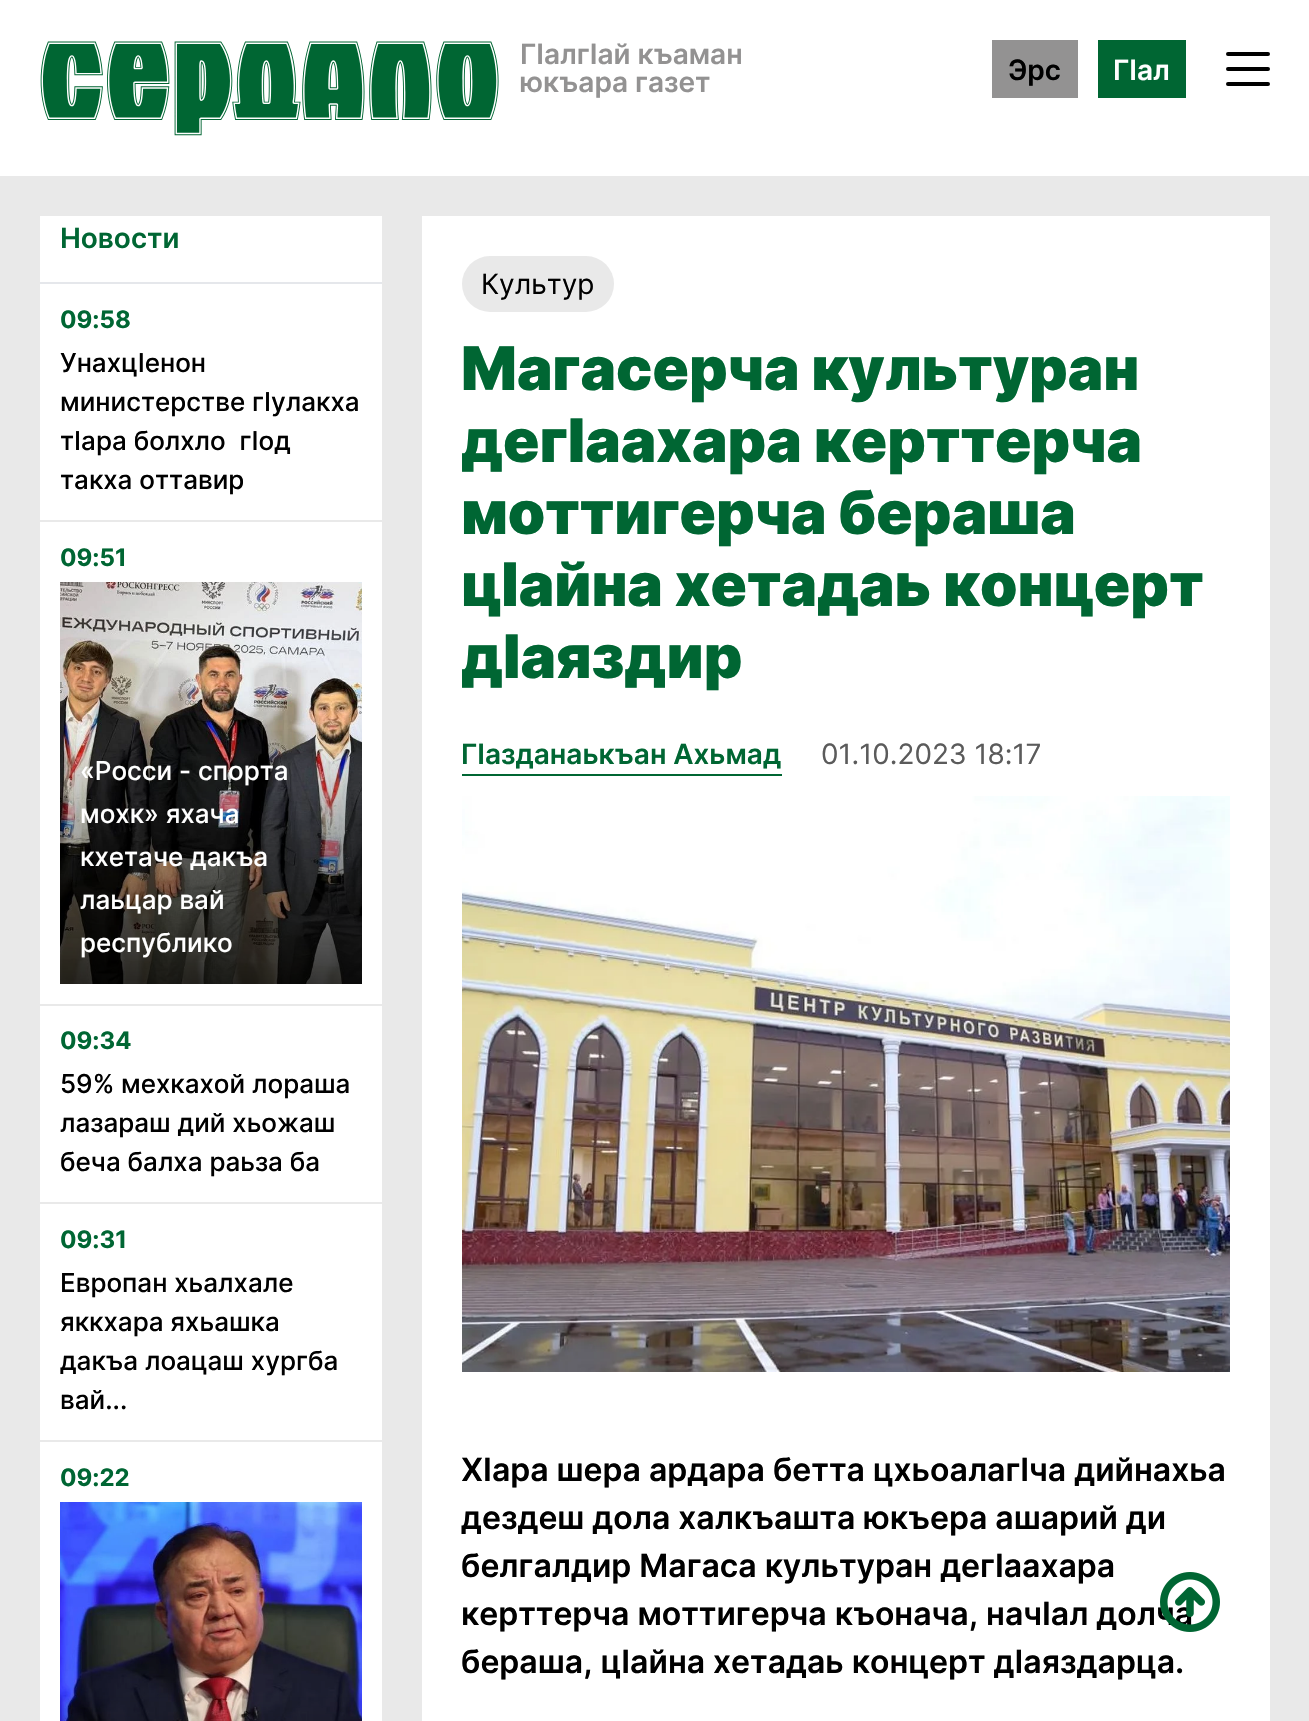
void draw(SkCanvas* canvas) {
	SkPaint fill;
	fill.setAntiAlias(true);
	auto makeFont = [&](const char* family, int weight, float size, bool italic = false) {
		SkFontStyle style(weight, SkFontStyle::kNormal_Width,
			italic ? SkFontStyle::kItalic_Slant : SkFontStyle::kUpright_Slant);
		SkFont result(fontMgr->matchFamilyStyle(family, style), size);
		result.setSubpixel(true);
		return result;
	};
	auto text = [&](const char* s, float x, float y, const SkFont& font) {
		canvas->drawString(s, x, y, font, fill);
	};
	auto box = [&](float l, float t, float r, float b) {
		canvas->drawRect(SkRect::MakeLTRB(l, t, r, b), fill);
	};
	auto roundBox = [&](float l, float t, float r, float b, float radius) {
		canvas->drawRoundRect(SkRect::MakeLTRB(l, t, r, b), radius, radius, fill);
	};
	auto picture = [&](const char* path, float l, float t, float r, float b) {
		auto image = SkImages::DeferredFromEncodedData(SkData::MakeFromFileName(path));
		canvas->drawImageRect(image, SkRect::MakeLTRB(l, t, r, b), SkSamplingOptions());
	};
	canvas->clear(0xFFE9E9E9);
	fill.setColor(0xFFFFFFFF);
	box(0, 0, 1309, 176);
	picture("image0.png", 40, 41, 499, 136);
	fill.setColor(0xFF939292);
	box(992, 40, 1078, 98);
	fill.setColor(0xFF006633);
	box(1098, 40, 1186, 98);
	fill.setStyle(SkPaint::kStroke_Style);
	fill.setStrokeWidth(4);
	fill.setStrokeCap(SkPaint::kRound_Cap);
	fill.setColor(0xFF000000);
	canvas->drawPath(SkPathBuilder().moveTo(1268, 54).lineTo(1228, 54).moveTo(1268, 69).lineTo(1228, 69).moveTo(1268, 84).lineTo(1228, 84).detach(), fill);
	fill.setStyle(SkPaint::kFill_Style);
	fill.setColor(0xFFFFFFFF);
	box(40, 216, 382, 1721);
	fill.setColor(0xFFE5E7EB);
	box(40, 282, 382, 284);
	fill.setColor(0xFFE9E9E9);
	box(40, 520, 382, 522);
	box(40, 1004, 382, 1006);
	picture("image1.png", 60, 582, 362, 984);
	box(40, 1202, 382, 1204);
	box(40, 1440, 382, 1442);
	picture("image2.png", 60, 1502, 362, 1721);
	fill.setColor(0xFFFFFFFF);
	box(422, 216, 1270, 1721);
	fill.setColor(0xFFE9E9E9);
	roundBox(462, 256, 614, 312, 28);
	fill.setColor(0xFF006633);
	box(462, 774, 782, 776);
	picture("image3.png", 462, 796, 1230, 1372);
	auto font1 = makeFont("Inter", 600, 28);
	fill.setColor(0xFF939292);
	text("ГӀалгӀай къаман", 520, 64, font1);
	text("юкъара газет", 520, 92, font1);
	fill.setColor(0xFF000000);
	text("Эрс", 1008, 80, font1);
	fill.setColor(0xFFFFFFFF);
	text("ГӀал", 1113, 80, font1);
	fill.setColor(0xFF006633);
	text("Новости", 60, 248, font1);
	auto font2 = makeFont("Inter", 700, 24);
	text("09:58", 60, 328, font2);
	auto font3 = makeFont("Inter", 500, 26);
	fill.setColor(0xFF000000);
	text("УнахцIенон", 60, 372, font3);
	text("министерстве гIулакха", 60, 411, font3);
	text("тIара болхло  гIод", 60, 450, font3);
	text("такха оттавир", 60, 489, font3);
	fill.setColor(0xFF006633);
	text("09:51", 60, 566, font2);
	fill.setColor(0xFFFFFFFF);
	text("«Росси - спорта", 80, 780, font3);
	text("мохк» яхача", 80, 823, font3);
	text("кхетаче дакъа", 80, 866, font3);
	text("лаьцар вай", 80, 909, font3);
	text("республико", 80, 952, font3);
	fill.setColor(0xFF006633);
	text("09:34", 60, 1049, font2);
	fill.setColor(0xFF000000);
	text("59% мехкахой лораша", 60, 1093, font3);
	text("лазараш дий хьожаш", 60, 1132, font3);
	text("беча балха раьза ба", 60, 1171, font3);
	fill.setColor(0xFF006633);
	text("09:31", 60, 1248, font2);
	fill.setColor(0xFF000000);
	text("Европан хьалхале", 60, 1292, font3);
	text("яккхара яхьашка", 60, 1331, font3);
	text("дакъа лоацаш хургба", 60, 1370, font3);
	text("вай...", 60, 1409, font3);
	fill.setColor(0xFF006633);
	text("09:22", 60, 1486, font2);
	auto font4 = makeFont("Inter", 400, 28);
	fill.setColor(0xFF000000);
	text("Культур", 481, 294, font4);
	auto font5 = makeFont("Inter", 900, 60);
	fill.setColor(0xFF006633);
	text("Магасерча культуран", 461, 390, font5);
	text("дегӀаахара керттерча", 461, 462, font5);
	text("моттигерча бераша", 461, 534, font5);
	text("цӀайна хетадаь концерт", 461, 606, font5);
	text("дӀаяздир", 461, 678, font5);
	text("ГIазданаькъан Ахьмад", 461, 764, font1);
	fill.setColor(0xFF5B5B5B);
	text("01.10.2023 18:17", 821, 764, font4);
	auto font6 = makeFont("Inter", 600, 32);
	fill.setColor(0xFF000000);
	text("ХӀара шера ардара бетта цхьоалагӀча дийнахьа", 461, 1481, font6);
	text("дездеш дола халкъашта юкъера ашарий ди", 461, 1529, font6);
	text("белгалдир Магаса культуран дегӀаахара", 461, 1577, font6);
	text("керттерча моттигерча къонача, начӀал долча", 461, 1625, font6);
	text("бераша, цӀайна хетадаь концерт дӀаяздарца.", 461, 1673, font6);
	picture("image4.png", 1160, 1572, 1220, 1632);
}
